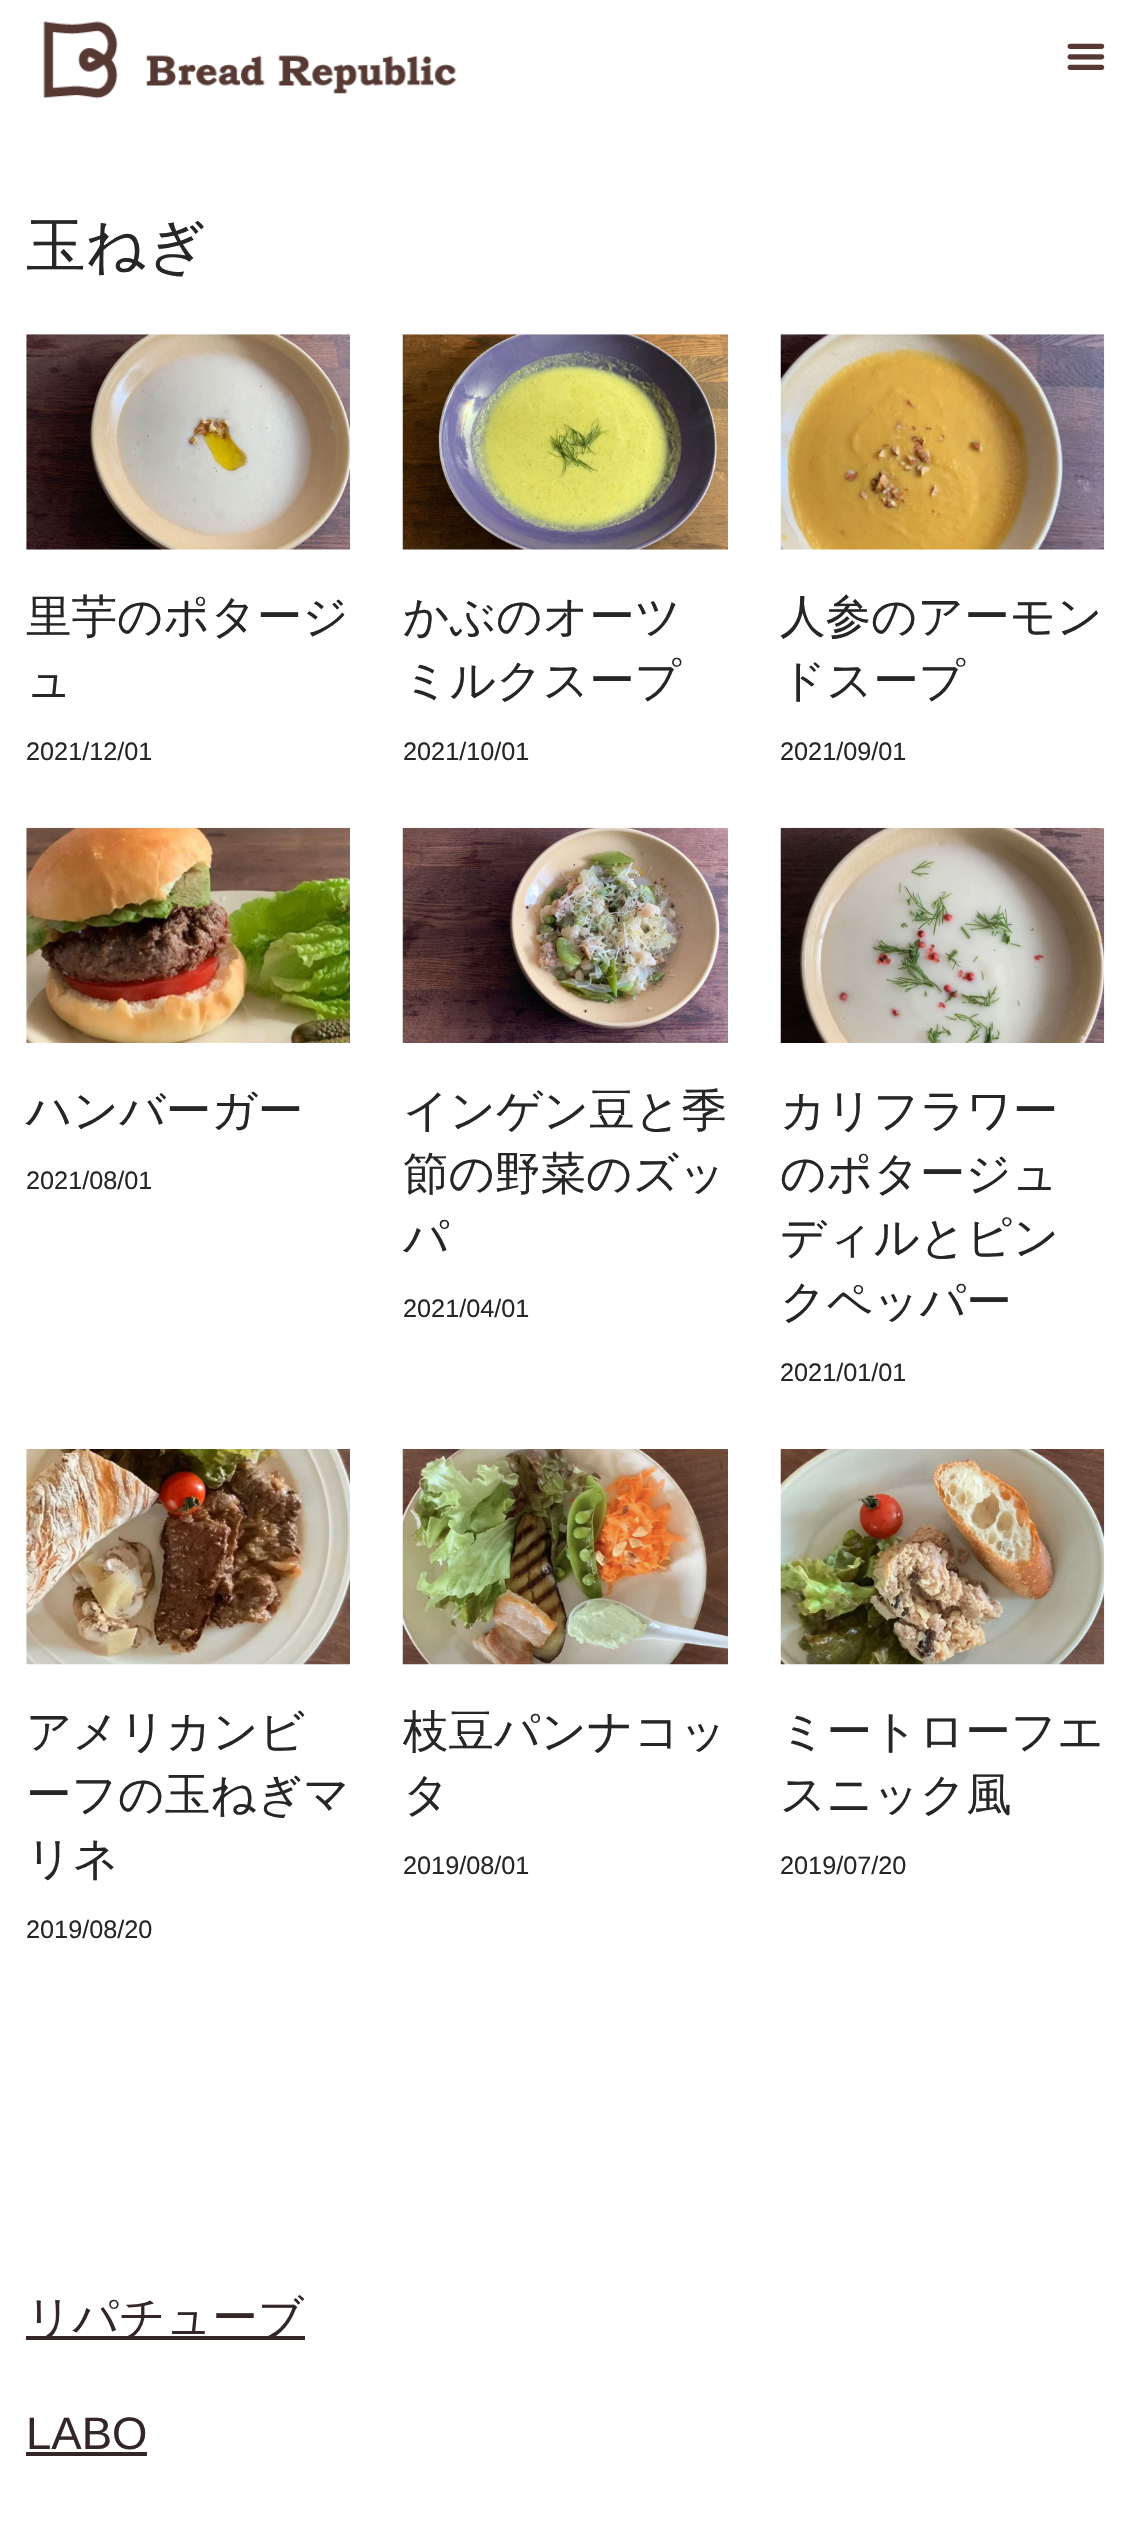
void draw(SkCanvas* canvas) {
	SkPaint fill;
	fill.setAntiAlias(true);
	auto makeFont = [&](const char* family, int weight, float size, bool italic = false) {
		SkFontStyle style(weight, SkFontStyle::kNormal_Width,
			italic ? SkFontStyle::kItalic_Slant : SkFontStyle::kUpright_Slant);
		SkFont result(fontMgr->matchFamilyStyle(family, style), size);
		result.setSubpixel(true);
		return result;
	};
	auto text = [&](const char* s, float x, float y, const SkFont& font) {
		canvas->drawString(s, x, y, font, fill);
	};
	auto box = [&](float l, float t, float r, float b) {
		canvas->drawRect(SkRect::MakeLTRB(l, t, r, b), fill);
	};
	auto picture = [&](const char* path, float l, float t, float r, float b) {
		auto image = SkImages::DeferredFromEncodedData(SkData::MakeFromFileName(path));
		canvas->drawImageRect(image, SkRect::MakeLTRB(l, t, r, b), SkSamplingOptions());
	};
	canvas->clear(0xFFFFFFFF);
	picture("image0.png", 43, 21, 457, 99);
	picture("image1.png", 1067, 43, 1105, 70);
	picture("image2.png", 26, 334, 350, 550);
	picture("image3.png", 402, 334, 728, 550);
	picture("image4.png", 780, 334, 1105, 550);
	picture("image5.png", 26, 827, 350, 1043);
	picture("image6.png", 402, 827, 728, 1043);
	picture("image7.png", 780, 827, 1105, 1043);
	picture("image8.png", 26, 1449, 350, 1665);
	picture("image9.png", 402, 1449, 728, 1665);
	picture("image10.png", 780, 1449, 1105, 1665);
	fill.setColor(0xFF342626);
	box(26, 2336, 305, 2340);
	box(26, 2452, 147, 2456);
	auto font1 = makeFont("WenQuanYi Zen Hei", 500, 59.5f);
	fill.setColor(0xFF272626);
	text("玉ねぎ", 26, 266, font1);
	auto font2 = makeFont("WenQuanYi Zen Hei", 500, 45.5f);
	text("里芋のポタージ", 26, 632, font2);
	text("ュ", 26, 696, font2);
	auto font3 = makeFont("Liberation Sans", 400, 25.25f);
	text("2021/12/01", 26, 760, font3);
	text("かぶのオーツ", 403, 632, font2);
	text("ミルクスープ", 403, 696, font2);
	text("2021/10/01", 403, 760, font3);
	text("人参のアーモン", 780, 632, font2);
	text("ドスープ", 780, 696, font2);
	text("2021/09/01", 780, 760, font3);
	text("ハンバーガー", 26, 1126, font2);
	text("2021/08/01", 26, 1189, font3);
	text("インゲン豆と季", 403, 1126, font2);
	text("節の野菜のズッ", 403, 1189, font2);
	text("パ", 403, 1253, font2);
	text("2021/04/01", 403, 1317, font3);
	text("カリフラワー", 780, 1126, font2);
	text("のポタージュ", 780, 1189, font2);
	text("ディルとピン", 780, 1253, font2);
	text("クペッパー", 780, 1317, font2);
	text("2021/01/01", 780, 1381, font3);
	text("アメリカンビ", 26, 1747, font2);
	text("ーフの玉ねぎマ", 26, 1810, font2);
	text("リネ", 26, 1874, font2);
	text("2019/08/20", 26, 1938, font3);
	text("枝豆パンナコッ", 403, 1747, font2);
	text("タ", 403, 1810, font2);
	text("2019/08/01", 403, 1874, font3);
	text("ミートローフエ", 780, 1747, font2);
	text("スニック風", 780, 1810, font2);
	text("2019/07/20", 780, 1874, font3);
	fill.setColor(0xFF342626);
	text("リパチューブ", 26, 2333, font2);
	auto font4 = makeFont("Liberation Sans", 400, 45.5f);
	text("LABO", 26, 2449, font4);
}
